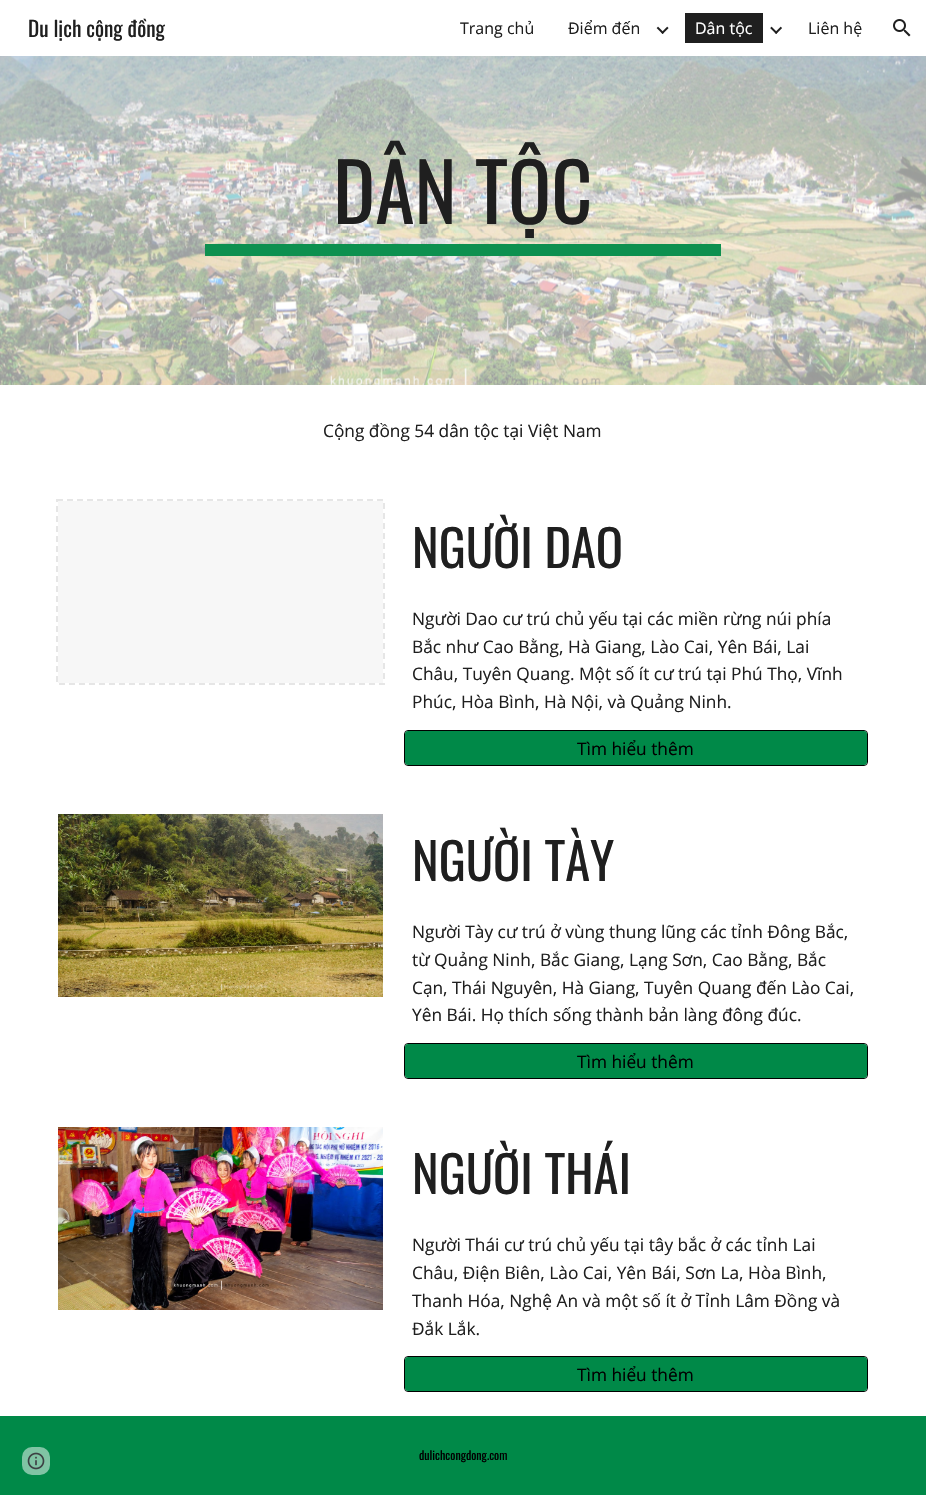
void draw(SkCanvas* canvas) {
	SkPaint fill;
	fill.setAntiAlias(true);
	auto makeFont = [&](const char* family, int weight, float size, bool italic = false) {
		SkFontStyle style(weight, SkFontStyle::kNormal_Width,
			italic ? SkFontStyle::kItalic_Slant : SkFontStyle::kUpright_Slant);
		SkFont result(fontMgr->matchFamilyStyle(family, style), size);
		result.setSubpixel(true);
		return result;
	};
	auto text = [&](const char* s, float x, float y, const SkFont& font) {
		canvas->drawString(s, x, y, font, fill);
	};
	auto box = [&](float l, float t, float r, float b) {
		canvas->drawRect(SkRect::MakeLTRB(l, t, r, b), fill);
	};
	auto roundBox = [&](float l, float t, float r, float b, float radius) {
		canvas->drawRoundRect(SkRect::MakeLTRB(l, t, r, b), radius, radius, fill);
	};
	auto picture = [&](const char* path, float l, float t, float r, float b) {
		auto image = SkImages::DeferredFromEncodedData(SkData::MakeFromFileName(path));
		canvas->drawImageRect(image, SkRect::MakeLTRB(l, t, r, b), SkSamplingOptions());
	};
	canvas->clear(0xFFFFFFFF);
	picture("image0.png", 656, 26, 669, 34);
	fill.setColor(0xFF1F1F1F);
	box(685, 13, 763, 43);
	picture("image1.png", 770, 26, 782, 34);
	picture("image2.png", 893, 19, 911, 37);
	picture("image3.png", 0, 56, 926, 385);
	fill.setColor(0xFF0D904F);
	box(205, 244, 721, 256);
	fill.setColor(0xFFF7F7F7);
	box(58, 501, 383, 683);
	fill.setStyle(SkPaint::kStroke_Style);
	fill.setStrokeWidth(2);
	fill.setColor(0xFFE6E6E6);
	fill.setPathEffect(SkDashPathEffect::Make({{6, 4}}, 0));
	canvas->drawPath(SkPathBuilder().moveTo(57, 500).lineTo(384, 500).lineTo(384, 684).lineTo(57, 684).close().detach(), fill);
	fill.setPathEffect(nullptr);
	fill.setStrokeWidth(1);
	fill.setColor(0xFF000000);
	canvas->drawRoundRect(SkRect::MakeLTRB(404.5f, 730.5f, 867.5f, 765.5f), 3.5f, 3.5f, fill);
	fill.setStyle(SkPaint::kFill_Style);
	fill.setColor(0xFF008948);
	roundBox(405, 731, 867, 765, 3);
	picture("image4.png", 58, 814, 383, 997);
	fill.setStyle(SkPaint::kStroke_Style);
	fill.setColor(0xFF000000);
	canvas->drawRoundRect(SkRect::MakeLTRB(404.5f, 1043.5f, 867.5f, 1078.5f), 3.5f, 3.5f, fill);
	fill.setStyle(SkPaint::kFill_Style);
	fill.setColor(0xFF008948);
	roundBox(405, 1044, 867, 1078, 3);
	picture("image5.png", 58, 1127, 383, 1310);
	fill.setStyle(SkPaint::kStroke_Style);
	fill.setColor(0xFF000000);
	canvas->drawRoundRect(SkRect::MakeLTRB(404.5f, 1356.5f, 867.5f, 1391.5f), 3.5f, 3.5f, fill);
	fill.setStyle(SkPaint::kFill_Style);
	fill.setColor(0xFF008948);
	roundBox(405, 1357, 867, 1391, 3);
	box(0, 1416, 926, 1495);
	fill.setColor(0xFF80C4A4);
	roundBox(22, 1447, 50, 1475, 10);
	picture("image6.png", 27, 1452, 45, 1470);
	auto font1 = makeFont("Oswald", 400, 21.25f);
	fill.setColor(0xFF1F1F1F);
	text("Du lịch cộng đồng", 28, 37, font1);
	auto font2 = makeFont("Open Sans", 400, 16);
	text("Trang chủ", 460, 34, font2);
	text("Điểm đến", 568, 34, font2);
	fill.setColor(0xFFFFFFFF);
	text("Dân tộc", 695, 34, font2);
	fill.setColor(0xFF1F1F1F);
	text("Liên hệ", 808, 34, font2);
	auto font3 = makeFont("Oswald", 400, 80);
	text("DÂN TỘC", 333, 224, font3);
	auto font4 = makeFont("Open Sans", 400, 17.3f);
	text("Cộng đồng 54 dân tộc tại Việt Nam", 323, 437, font4);
	auto font5 = makeFont("Oswald", 400, 50.5f);
	text("NGƯỜI DAO", 412, 568, font5);
	text("Người Dao cư trú chủ yếu tại các miền rừng núi phía", 412, 625, font4);
	text("Bắc như Cao Bằng, Hà Giang, Lào Cai, Yên Bái, Lai", 412, 653, font4);
	text("Châu, Tuyên Quang. Một số ít cư trú tại Phú Thọ, Vĩnh", 412, 680, font4);
	text("Phúc, Hòa Bình, Hà Nội, và Quảng Ninh.", 412, 708, font4);
	fill.setColor(0xFF000000);
	text("Tìm hiểu thêm", 577, 755, font4);
	fill.setColor(0xFF1F1F1F);
	text("NGƯỜI TÀY", 412, 881, font5);
	text("Người Tày cư trú ở vùng thung lũng các tỉnh Ðông Bắc,", 412, 938, font4);
	text("từ Quảng Ninh, Bắc Giang, Lạng Sơn, Cao Bằng, Bắc", 412, 966, font4);
	text("Cạn, Thái Nguyên, Hà Giang, Tuyên Quang đến Lào Cai,", 412, 994, font4);
	text("Yên Bái. Họ thích sống thành bản làng đông đúc.", 412, 1021, font4);
	fill.setColor(0xFF000000);
	text("Tìm hiểu thêm", 577, 1068, font4);
	fill.setColor(0xFF1F1F1F);
	text("NGƯỜI THÁI", 412, 1194, font5);
	text("Người Thái cư trú chủ yếu tại tây bắc ở các tỉnh Lai", 412, 1251, font4);
	text("Châu, Điện Biên, Lào Cai, Yên Bái, Sơn La, Hòa Bình,", 412, 1279, font4);
	text("Thanh Hóa, Nghệ An và một số ít ở Tỉnh Lâm Đồng và", 412, 1307, font4);
	text("Đắk Lắk.", 412, 1335, font4);
	fill.setColor(0xFF000000);
	text("Tìm hiểu thêm", 577, 1381, font4);
	auto font6 = makeFont("Oswald", 400, 12);
	text("dulichcongdong.com", 419, 1460, font6);
}
